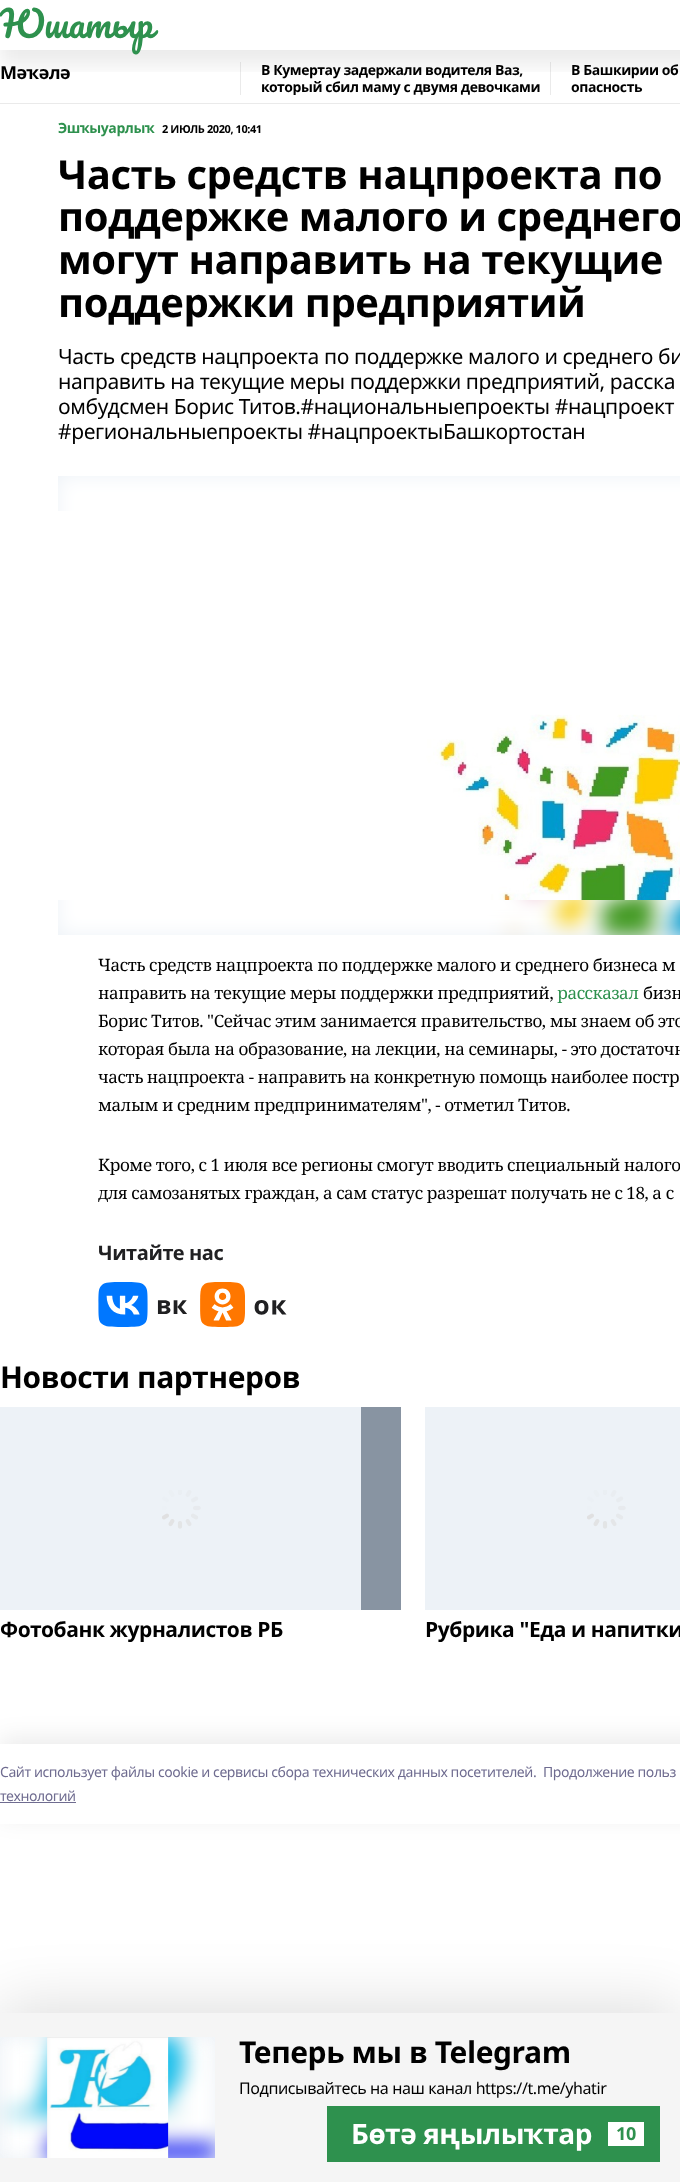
<?xml version="1.0" encoding="UTF-8"?>
<svg xmlns="http://www.w3.org/2000/svg" width="680" height="2182">
    <defs>
        <clipPath id="clip1"><rect x="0" y="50" width="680" height="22"/></clipPath>
        <filter id="blur1" x="-50%" y="-200%" width="200%" height="500%"><feGaussianBlur stdDeviation="10"/></filter>
        <clipPath id="clip2"><rect x="241" y="62" width="309" height="33"/></clipPath>
        <filter id="blur2" x="-50%" y="-200%" width="200%" height="500%"><feGaussianBlur stdDeviation="30"/></filter>
        <clipPath id="clip3"><path d="M 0 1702 H 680 V 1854 H 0 Z M 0 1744 H 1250 V 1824 H 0 Z" clip-rule="evenodd"/></clipPath>
        <filter id="blur3" x="-50%" y="-200%" width="200%" height="500%"><feGaussianBlur stdDeviation="11.5"/></filter>
    </defs>
    <rect width="100%" height="100%" fill="#FFFFFF"/>
    <rect x="240" y="62" width="1" height="33" fill="#EAEAEA"/>
    <rect x="550" y="62" width="1" height="33" fill="#EAEAEA"/>
    <g clip-path="url(#clip1)">
        <rect x="0" y="15" width="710" height="50" fill="#000000" fill-opacity="0.08" filter="url(#blur1)"/>
    </g>
    <text x="0" y="38" font-family="Pacifico" font-size="36" letter-spacing="-0.42" fill="#2E914E">Юшатыр</text>
    <rect x="0" y="103" width="680" height="1" fill="#EAEAEA"/>
    <text x="0" y="79" font-family="Noto Sans" font-size="18" font-weight="700" letter-spacing="-0.42" fill="#000000">Мәҡәлә</text>
    <text x="261" y="75" font-family="Noto Sans" font-size="14" font-weight="700" letter-spacing="-0.42" fill="#000000">В Кумертау задержали водителя Ваз,</text>
    <g clip-path="url(#clip2)">
        <text x="261" y="92" font-family="Noto Sans" font-size="14" font-weight="700" letter-spacing="-0.42" fill="#000000">который сбил маму с двумя девочками</text>
    </g>
    <text font-family="Noto Sans" font-size="14" font-weight="700" letter-spacing="-0.42" fill="#000000">
        <tspan x="571" y="75">В Башкирии об</tspan>
        <tspan x="571" y="92">опасность</tspan>
    </text>
    <text x="58" y="133" font-family="Noto Sans" font-size="14" font-weight="700" letter-spacing="-0.42" fill="#2E914E">Эшҡыуарлыҡ</text>
    <text x="162" y="133" font-family="Noto Sans" font-size="11" font-weight="700" letter-spacing="-0.42" fill="#000000">2 ИЮЛЬ 2020, 10:41</text>
    <text font-family="Noto Sans" font-size="40" font-weight="700" letter-spacing="-0.42" fill="#000000">
        <tspan x="58" y="189">Часть средств нацпроекта по</tspan>
        <tspan x="58" y="231">поддержке малого и среднего</tspan>
        <tspan x="58" y="274">могут направить на текущие</tspan>
        <tspan x="58" y="317">поддержки предприятий</tspan>
    </text>
    <text font-family="Noto Sans" font-size="21" letter-spacing="-0.42" fill="#000000">
        <tspan x="58" y="364">Часть средств нацпроекта по поддержке малого и среднего би</tspan>
        <tspan x="58" y="389">направить на текущие меры поддержки предприятий, расска</tspan>
        <tspan x="58" y="414">омбудсмен Борис Титов.#национальныепроекты #нацпроект</tspan>
        <tspan x="58" y="439">#региональныепроекты #нацпроектыБашкортостан</tspan>
    </text>
    <rect x="58" y="476" width="622" height="459" fill="#EDF2F7"/>
    <image x="58" y="476" width="622" height="459" href="img_01.png"/>
    <image x="58" y="511" width="622" height="389" href="img_02.png"/>
    <text font-family="Noto Serif" font-size="17" letter-spacing="-0.42" fill="#000000">
        <tspan x="98" y="971">Часть средств нацпроекта по поддержке малого и среднего бизнеса м</tspan>
        <tspan x="98" y="999">направить на текущие меры поддержки предприятий,</tspan>
    </text>
    <text x="557" y="999" font-family="Noto Serif" font-size="17" letter-spacing="-0.42" fill="#2E914E">рассказал</text>
    <text x="643" y="999" font-family="Noto Serif" font-size="17" letter-spacing="-0.42" fill="#000000">бизн</text>
    <text font-family="Noto Serif" font-size="17" letter-spacing="-0.42" fill="#000000">
        <tspan x="98" y="1027">Борис Титов. "Сейчас этим занимается правительство, мы знаем об это</tspan>
        <tspan x="98" y="1055">которая была на образование, на лекции, на семинары, - это достаточн</tspan>
        <tspan x="98" y="1083">часть нацпроекта - направить на конкретную помощь наиболее постр</tspan>
        <tspan x="98" y="1111">малым и средним предпринимателям", - отметил Титов.</tspan>
    </text>
    <text font-family="Noto Serif" font-size="17" letter-spacing="-0.42" fill="#000000">
        <tspan x="98" y="1171">Кроме того, с 1 июля все регионы смогут вводить специальный налого</tspan>
        <tspan x="98" y="1199">для самозанятых граждан, а сам статус разрешат получать не с 18, а с</tspan>
    </text>
    <text x="98" y="1260" font-family="Noto Sans" font-size="20" font-weight="700" letter-spacing="-0.42" fill="#202022">Читайте нас</text>
    <image x="98" y="1282" width="89" height="45" href="img_03.png"/>
    <image x="200" y="1282" width="87" height="45" href="img_04.png"/>
    <text x="0" y="1388" font-family="Noto Sans" font-size="30" font-weight="700" letter-spacing="-0.42" fill="#000000">Новости партнеров</text>
    <rect x="361" y="1407" width="40" height="203" fill="#8894A2"/>
    <rect x="0" y="1407" width="361" height="203" fill="#EDF2F7"/>
    <image x="162" y="1490" width="39" height="39" href="img_05.png"/>
    <text x="0" y="1637" font-family="Noto Sans" font-size="21" font-weight="700" letter-spacing="-0.42" fill="#000000">Фотобанк журналистов РБ</text>
    <rect x="425" y="1407" width="255" height="203" fill="#EDF2F7"/>
    <image x="587" y="1490" width="39" height="39" href="img_05.png"/>
    <text x="425" y="1637" font-family="Noto Sans" font-size="21" font-weight="700" letter-spacing="-0.42" fill="#000000">Рубрика "Еда и напитки</text>
    <rect x="0" y="2003" width="680" height="169" fill="#000000" fill-opacity="0.12" filter="url(#blur2)"/>
    <rect x="0" y="2013" width="680" height="169" fill="#F5F5F5"/>
    <rect x="327" y="2106" width="333" height="56" fill="#2E914E"/>
    <text x="351" y="2144" font-family="Noto Sans" font-size="28" font-weight="700" letter-spacing="-0.42" fill="#FFFFFF">Бөтә яңылыҡтар</text>
    <rect x="608" y="2122" width="36" height="24" fill="#FFFFFF"/>
    <text x="616" y="2140" font-family="Noto Sans" font-size="18" font-weight="700" letter-spacing="-0.42" fill="#2E914E">10</text>
    <g clip-path="url(#clip3)">
        <rect x="0" y="1738" width="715" height="80" fill="#14142B" fill-opacity="0.08" filter="url(#blur3)"/>
    </g>
    <text x="0" y="1777" font-family="Noto Sans" font-size="14" letter-spacing="-0.42" fill="#6F6C90">Cайт использует файлы cookie и сервисы сбора технических данных посетителей.</text>
    <text x="543" y="1777" font-family="Noto Sans" font-size="14" letter-spacing="-0.42" fill="#6F6C90">Продолжение польз</text>
    <text x="0" y="1801" font-family="Noto Sans" font-size="14" letter-spacing="-0.42" fill="#6F6C90">технологий</text>
    <rect x="0" y="1802" width="76" height="1" fill="#6F6C90"/>
    <rect x="0" y="2037" width="215" height="121" fill="#EDF2F7"/>
    <image x="0" y="2037" width="215" height="121" href="img_06.png"/>
    <image x="47" y="2037" width="122" height="121" href="img_07.png"/>
    <text x="239" y="2063" font-family="Noto Sans" font-size="30" font-weight="700" letter-spacing="-0.42" fill="#000000">Теперь мы в Telegram</text>
    <text x="239" y="2094" font-family="Noto Sans" font-size="16" letter-spacing="-0.42" fill="#000000">Подписывайтесь на наш канал https://t.me/yhatir</text>
</svg>
